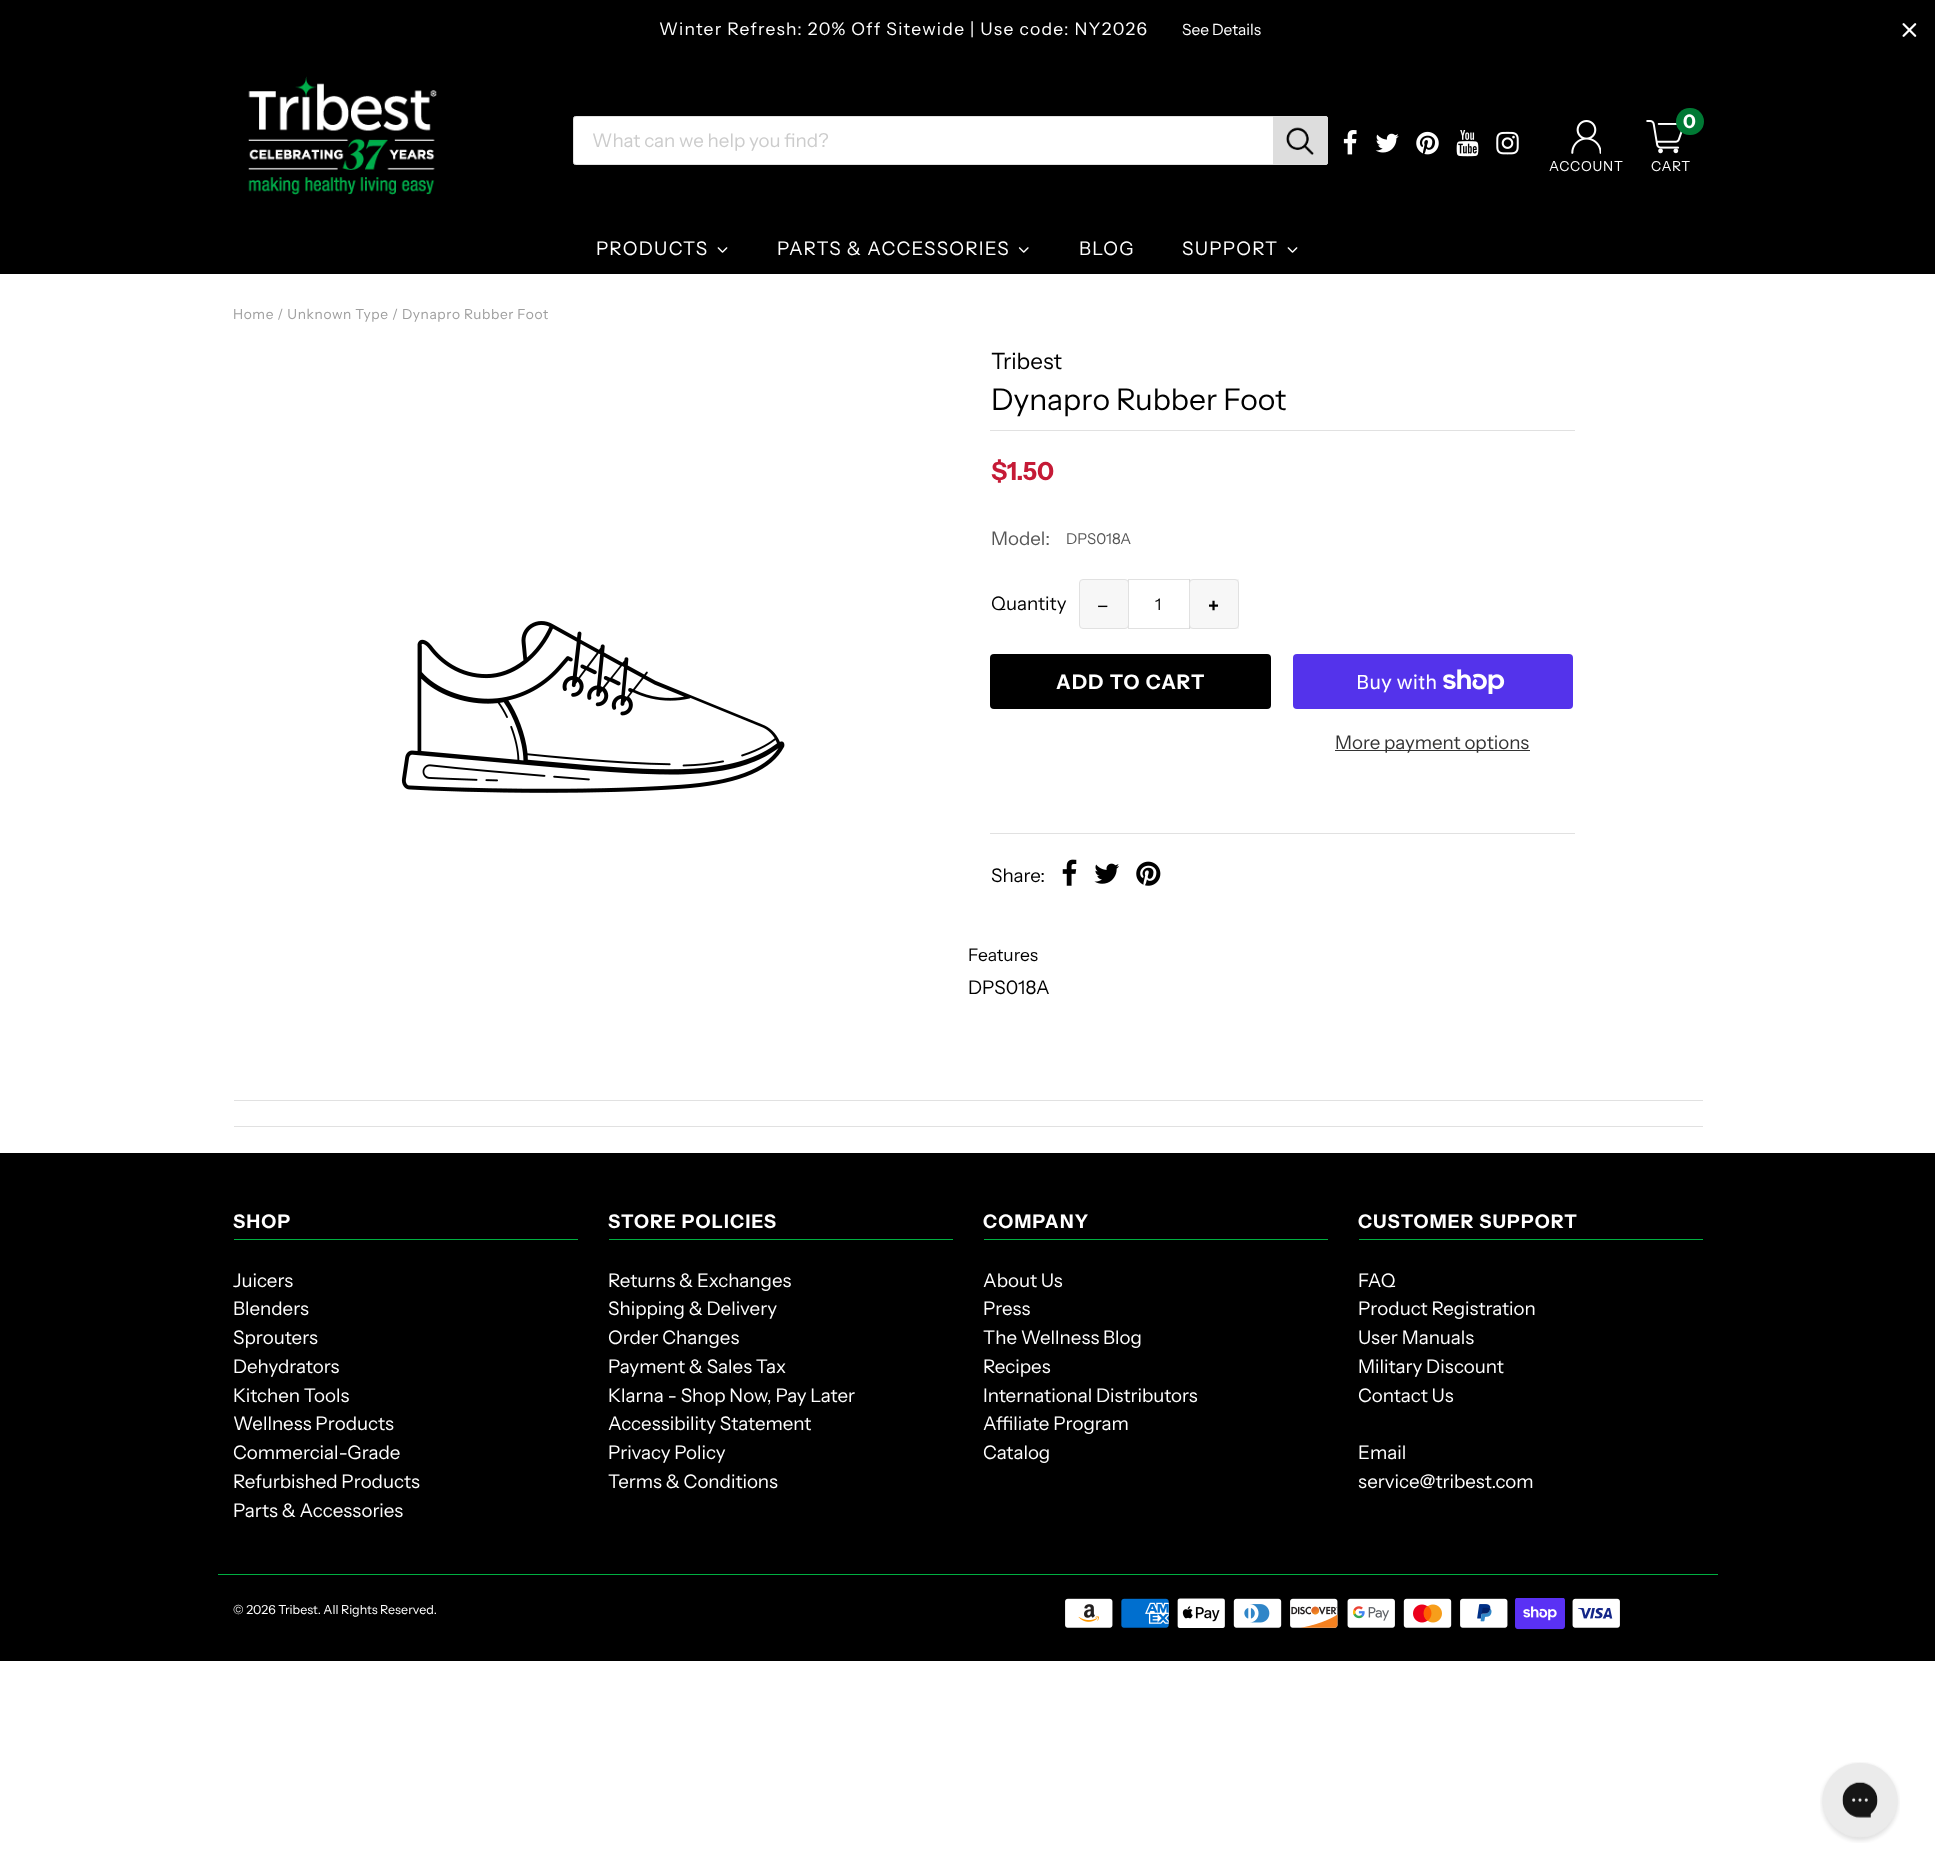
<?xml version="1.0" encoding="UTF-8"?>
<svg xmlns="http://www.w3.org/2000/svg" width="1935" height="1871">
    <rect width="100%" height="100%" fill="#FFFFFF"/>
    <rect x="0" y="0" width="1935" height="274" fill="#000000"/>
    <text x="659" y="35" font-family="Instrument Sans" font-size="17.5" letter-spacing="1.25" fill="#FFFFFF">Winter Refresh: 20% Off Sitewide | Use code: NY2026</text>
    <text x="1182" y="35" font-family="Instrument Sans" font-size="15.5" fill="#FFFFFF">See Details</text>
    <image x="1902" y="23" width="15" height="14" href="img_01.png"/>
    <image x="248" y="76" width="189" height="119" href="img_02.png"/>
    <rect x="573.5" y="116.5" width="754" height="48" rx="2" fill="#FFFFFF" stroke="#E1E1E1"/>
    <text x="592" y="147" font-family="Instrument Sans" font-size="18.75" fill="#CCCCCC">What can we help you find?</text>
    <path d="M 1273 116 H 1325.5 C 1327 116 1328 117 1328 118.5 V 162.5 C 1328 164 1327 165 1325.5 165 H 1273 Z" fill="#DDDDDD"/>
    <image x="1286" y="127" width="28" height="28" href="img_03.png"/>
    <image x="1343" y="130" width="14" height="25" href="img_04.png"/>
    <image x="1375" y="133" width="24" height="20" href="img_05.png"/>
    <image x="1416" y="131" width="23" height="24" href="img_06.png"/>
    <image x="1456" y="130" width="23" height="27" href="img_07.png"/>
    <image x="1496" y="131" width="23" height="24" href="img_08.png"/>
    <image x="1646" y="120" width="37" height="34" href="img_09.png"/>
    <rect x="1676" y="108" width="28" height="27" rx="13.5" fill="#007934"/>
    <text x="1683" y="128" font-family="Instrument Sans" font-size="18.75" font-weight="700" letter-spacing="-2" fill="#FFFFFF">0</text>
    <text x="1651" y="171" font-family="Instrument Sans" font-size="13.75" letter-spacing="0.75" fill="#FFFFFF">CART</text>
    <image x="1571" y="120" width="30" height="34" href="img_10.png"/>
    <text x="1549" y="171" font-family="Instrument Sans" font-size="13.75" letter-spacing="0.75" fill="#FFFFFF">ACCOUNT</text>
    <text x="596" y="255" font-family="Instrument Sans" font-size="18.75" letter-spacing="1.25" fill="#FFFFFF">PRODUCTS</text>
    <image x="717" y="247" width="11" height="6" href="img_11.png"/>
    <text x="777" y="255" font-family="Instrument Sans" font-size="18.75" letter-spacing="1.25" fill="#FFFFFF">PARTS &amp; ACCESSORIES</text>
    <image x="1018" y="247" width="11" height="6" href="img_12.png"/>
    <text x="1079" y="255" font-family="Instrument Sans" font-size="18.75" letter-spacing="1.25" fill="#FFFFFF">BLOG</text>
    <text x="1182" y="255" font-family="Instrument Sans" font-size="18.75" letter-spacing="1.25" fill="#FFFFFF">SUPPORT</text>
    <image x="1287" y="247" width="11" height="6" href="img_11.png"/>
    <text x="233" y="319" font-family="Instrument Sans" font-size="13.75" letter-spacing="0.6" fill="#9E9E9E">Home / Unknown Type / Dynapro Rubber Foot</text>
    <image x="401" y="621" width="384" height="172" href="img_13.png"/>
    <text x="991" y="369" font-family="Instrument Sans" font-size="22.5" fill="#000000">Tribest</text>
    <text x="991" y="410" font-family="Instrument Sans" font-size="30" fill="#000000">Dynapro Rubber Foot</text>
    <rect x="990" y="430" width="585" height="1" fill="#E1E1E1"/>
    <text x="991" y="480" font-family="Instrument Sans" font-size="25" font-weight="700" fill="#C51A36">$1.50</text>
    <text x="991" y="545" font-family="Instrument Sans" font-size="18.75" fill="#575757">Model:</text>
    <text x="1066" y="544" font-family="Instrument Sans" font-size="15" fill="#575757">DPS018A</text>
    <text x="991" y="610" font-family="Instrument Sans" font-size="18.75" fill="#000000">Quantity</text>
    <rect x="1079.5" y="579.5" width="49" height="49" rx="3.5" fill="#F7F7F7" stroke="#E1E1E1"/>
    <text x="1097" y="613" font-family="Liberation Serif" font-size="20" font-weight="700" letter-spacing="1.25" fill="#000000">−</text>
    <rect x="1128.5" y="579.5" width="61" height="49" fill="none" stroke="#E1E1E1"/>
    <text x="1155" y="610" font-family="Instrument Sans" font-size="16" fill="#000000">1</text>
    <rect x="1189" y="579" width="50" height="50" fill="#000000" fill-opacity="0.03"/>
    <rect x="1189.5" y="579.5" width="49" height="49" rx="3.5" fill="none" stroke="#E1E1E1"/>
    <text x="1208" y="613" font-family="Instrument Sans" font-size="20" font-weight="700" letter-spacing="1.25" fill="#000000">+</text>
    <rect x="990" y="654" width="281" height="55" rx="4" fill="#000000"/>
    <text x="1056" y="689" font-family="Instrument Sans" font-size="20" font-weight="700" letter-spacing="1.25" fill="#FFFFFF">ADD TO CART</text>
    <rect x="1293" y="654" width="280" height="55" rx="4" fill="#5433EB"/>
    <text x="1356" y="689" font-family="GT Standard" font-size="20" fill="#FFFFFF">Buy with</text>
    <image x="1443" y="669" width="62" height="25" href="img_14.png"/>
    <rect x="1335" y="750" width="195" height="1" fill="#333333"/>
    <text x="1335" y="749" font-family="Instrument Sans" font-size="18.75" fill="#333333">More payment options</text>
    <rect x="990" y="833" width="585" height="1" fill="#E1E1E1"/>
    <text x="991" y="882" font-family="Instrument Sans" font-size="18.75" fill="#000000">Share:</text>
    <image x="1062" y="859" width="15" height="27" href="img_15.png"/>
    <image x="1094" y="863" width="25" height="21" href="img_16.png"/>
    <image x="1136" y="861" width="25" height="25" href="img_17.png"/>
    <text x="968" y="961" font-family="Instrument Sans" font-size="17.5" fill="#000000">Features</text>
    <text x="968" y="994" font-family="Instrument Sans" font-size="18.75" fill="#000000">DPS018A</text>
    <rect x="234" y="1100" width="1469" height="1" fill="#E1E1E1"/>
    <rect x="234" y="1126" width="1469" height="1" fill="#E1E1E1"/>
    <rect x="0" y="1153" width="1935" height="508" fill="#000000"/>
    <rect x="234" y="1239" width="344" height="1" fill="#00AF41"/>
    <text x="233" y="1228" font-family="Instrument Sans" font-size="18.75" font-weight="700" letter-spacing="1.25" fill="#FFFFFF">SHOP</text>
    <text font-family="Instrument Sans" font-size="18.75" fill="#FFFFFF">
        <tspan x="233" y="1287">Juicers</tspan>
        <tspan x="233" y="1315">Blenders</tspan>
        <tspan x="233" y="1344">Sprouters</tspan>
        <tspan x="233" y="1373">Dehydrators</tspan>
        <tspan x="233" y="1402">Kitchen Tools</tspan>
        <tspan x="233" y="1430">Wellness Products</tspan>
        <tspan x="233" y="1459">Commercial-Grade</tspan>
        <tspan x="233" y="1488">Refurbished Products</tspan>
        <tspan x="233" y="1517">Parts &amp; Accessories</tspan>
    </text>
    <rect x="609" y="1239" width="344" height="1" fill="#00AF41"/>
    <text x="608" y="1228" font-family="Instrument Sans" font-size="18.75" font-weight="700" letter-spacing="1.25" fill="#FFFFFF">STORE POLICIES</text>
    <text font-family="Instrument Sans" font-size="18.75" fill="#FFFFFF">
        <tspan x="608" y="1287">Returns &amp; Exchanges</tspan>
        <tspan x="608" y="1315">Shipping &amp; Delivery</tspan>
        <tspan x="608" y="1344">Order Changes</tspan>
        <tspan x="608" y="1373">Payment &amp; Sales Tax</tspan>
        <tspan x="608" y="1402">Klarna - Shop Now, Pay Later</tspan>
        <tspan x="608" y="1430">Accessibility Statement</tspan>
        <tspan x="608" y="1459">Privacy Policy</tspan>
        <tspan x="608" y="1488">Terms &amp; Conditions</tspan>
    </text>
    <rect x="984" y="1239" width="344" height="1" fill="#00AF41"/>
    <text x="983" y="1228" font-family="Instrument Sans" font-size="18.75" font-weight="700" letter-spacing="1.25" fill="#FFFFFF">COMPANY</text>
    <text font-family="Instrument Sans" font-size="18.75" fill="#FFFFFF">
        <tspan x="983" y="1287">About Us</tspan>
        <tspan x="983" y="1315">Press</tspan>
        <tspan x="983" y="1344">The Wellness Blog</tspan>
        <tspan x="983" y="1373">Recipes</tspan>
        <tspan x="983" y="1402">International Distributors</tspan>
        <tspan x="983" y="1430">Affiliate Program</tspan>
        <tspan x="983" y="1459">Catalog</tspan>
    </text>
    <rect x="1359" y="1239" width="344" height="1" fill="#00AF41"/>
    <text x="1358" y="1228" font-family="Instrument Sans" font-size="18.75" font-weight="700" letter-spacing="1.25" fill="#FFFFFF">CUSTOMER SUPPORT</text>
    <text font-family="Instrument Sans" font-size="18.75" fill="#FFFFFF">
        <tspan x="1358" y="1287">FAQ</tspan>
        <tspan x="1358" y="1315">Product Registration</tspan>
        <tspan x="1358" y="1344">User Manuals</tspan>
        <tspan x="1358" y="1373">Military Discount</tspan>
        <tspan x="1358" y="1402">Contact Us</tspan>
    </text>
    <text font-family="Instrument Sans" font-size="18.75" fill="#FFFFFF">
        <tspan x="1358" y="1459">Email</tspan>
        <tspan x="1358" y="1488">service@tribest.com</tspan>
    </text>
    <rect x="218" y="1574" width="1500" height="1" fill="#00AF41"/>
    <text x="233" y="1614" font-family="Instrument Sans" font-size="12.5" fill="#FFFFFF">© 2026 Tribest. All Rights Reserved.</text>
    <image x="1065" y="1598" width="48" height="30" href="img_18.png"/>
    <image x="1121" y="1598" width="48" height="30" href="img_19.png"/>
    <image x="1177" y="1598" width="48" height="30" href="img_20.png"/>
    <image x="1233" y="1598" width="49" height="30" href="img_21.png"/>
    <image x="1290" y="1598" width="48" height="30" href="img_22.png"/>
    <image x="1347" y="1598" width="48" height="30" href="img_23.png"/>
    <image x="1403" y="1598" width="49" height="30" href="img_24.png"/>
    <image x="1460" y="1598" width="48" height="30" href="img_25.png"/>
    <image x="1515" y="1598" width="50" height="32" href="img_26.png"/>
    <image x="1572" y="1598" width="48" height="30" href="img_27.png"/>
    <image x="1820" y="1762" width="80" height="81" href="img_28.png"/>
</svg>
